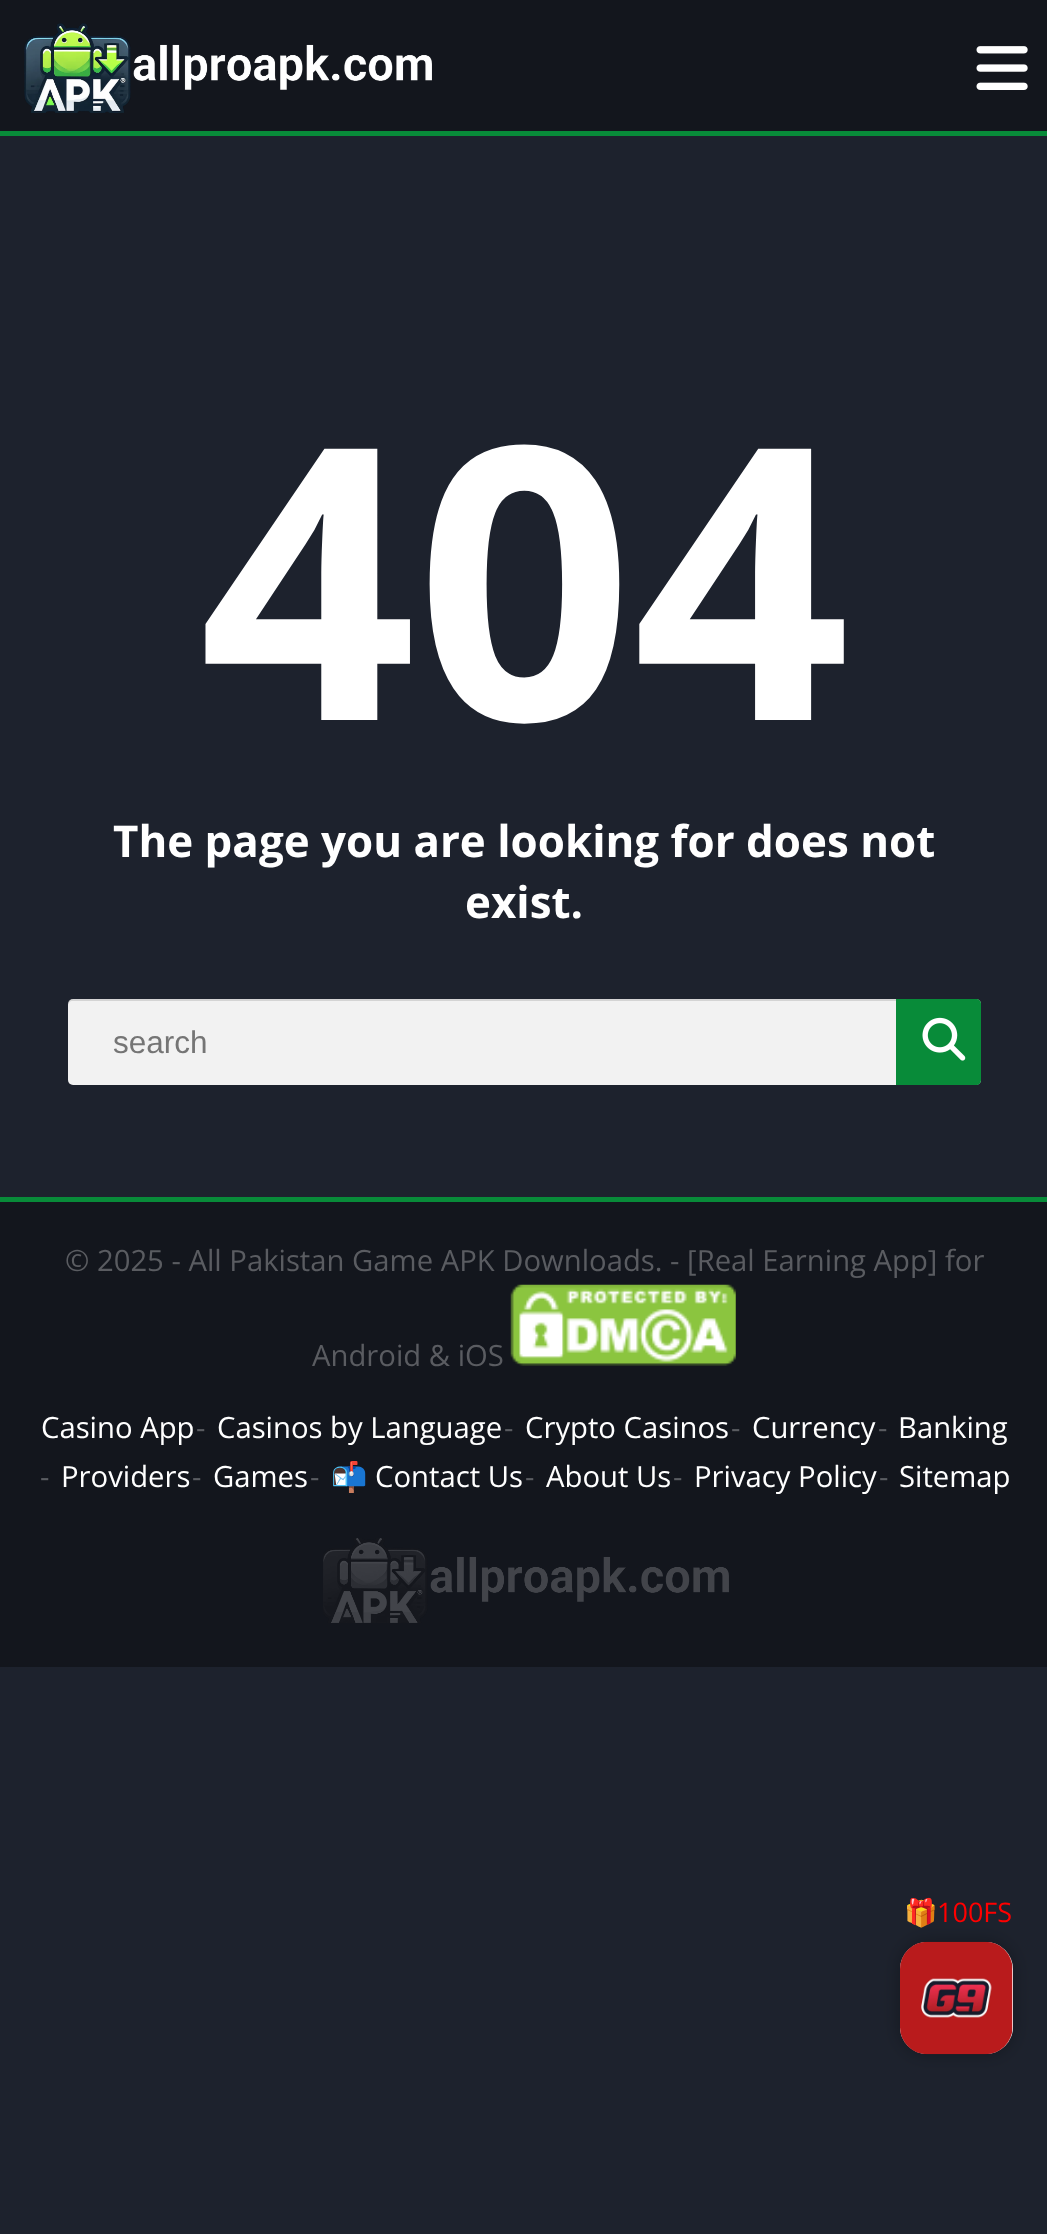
<?xml version="1.0" encoding="UTF-8"?>
<svg xmlns="http://www.w3.org/2000/svg" width="1047" height="2234">
    <defs>
        <filter id="blur1" x="-50%" y="-200%" width="200%" height="500%"><feGaussianBlur stdDeviation="9"/></filter>
    </defs>
    <rect width="100%" height="100%" fill="#1D222D"/>
    <rect x="0" y="0" width="1047" height="131" fill="#13161D"/>
    <rect x="0" y="131" width="1047" height="5" fill="#088B39"/>
    <image x="24" y="23" width="408" height="90" href="img_01.png"/>
    <image x="976" y="46" width="52" height="44" href="img_02.png"/>
    <text x="199" y="720" font-family="Open Sans" font-size="380" font-weight="700" fill="#FFFFFF">404</text>
    <text x="113" y="857" font-family="Open Sans" font-size="43.9" font-weight="700" fill="#FFFFFF">The page you are looking for does not</text>
    <text x="465" y="918" font-family="Open Sans" font-size="43.9" font-weight="700" fill="#FFFFFF">exist.</text>
    <rect x="68" y="999" width="913" height="86" rx="5" fill="#F2F2F2"/>
    <path d="M 72 1001 H 976 C 979 1001 981 1003 981 1006 V 1004 C 981 1001 979 999 976 999 H 73 C 70 999 68 1001 68 1004 V 1006 C 68 1003 70 1001 72 1001 Z" fill="#000000" fill-opacity="0.12"/>
    <text x="113" y="1053" font-family="Liberation Sans" font-size="31.5" fill="#757575">search</text>
    <path d="M 896 999 H 976 C 979 999 981 1001 981 1004 V 1080 C 981 1083 979 1085 976 1085 H 896 Z" fill="#088B39"/>
    <image x="922" y="1017" width="44" height="44" href="img_03.png"/>
    <rect x="0" y="1202" width="1047" height="465" fill="#13161D"/>
    <rect x="0" y="1197" width="1047" height="5" fill="#088B39"/>
    <text x="65" y="1271" font-family="Open Sans" font-size="29.25" fill="#5A5C61">© 2025 - All Pakistan Game APK Downloads. - [Real Earning App] for</text>
    <text x="312" y="1366" font-family="Open Sans" font-size="29.25" fill="#5A5C61">Android &amp; iOS</text>
    <image x="510" y="1284" width="226" height="82" href="img_04.png"/>
    <text x="41" y="1438" font-family="Open Sans" font-size="29.25" fill="#FFFFFF">Casino App</text>
    <text x="196" y="1438" font-family="Open Sans" font-size="29.25" fill="#5A5C61">-</text>
    <text x="217" y="1438" font-family="Open Sans" font-size="29.25" fill="#FFFFFF">Casinos by Language</text>
    <text x="504" y="1438" font-family="Open Sans" font-size="29.25" fill="#5A5C61">-</text>
    <text x="525" y="1438" font-family="Open Sans" font-size="29.25" fill="#FFFFFF">Crypto Casinos</text>
    <text x="731" y="1438" font-family="Open Sans" font-size="29.25" fill="#5A5C61">-</text>
    <text x="752" y="1438" font-family="Open Sans" font-size="29.25" fill="#FFFFFF">Currency</text>
    <text x="878" y="1438" font-family="Open Sans" font-size="29.25" fill="#5A5C61">-</text>
    <text x="898" y="1438" font-family="Open Sans" font-size="29.25" fill="#FFFFFF">Banking</text>
    <text x="40" y="1487" font-family="Open Sans" font-size="29.25" fill="#5A5C61">-</text>
    <text x="61" y="1487" font-family="Open Sans" font-size="29.25" fill="#FFFFFF">Providers</text>
    <text x="192" y="1487" font-family="Open Sans" font-size="29.25" fill="#5A5C61">-</text>
    <text x="213" y="1487" font-family="Open Sans" font-size="29.25" fill="#FFFFFF">Games</text>
    <text x="310" y="1487" font-family="Open Sans" font-size="29.25" fill="#5A5C61">-</text>
    <text x="331" y="1487" font-family="Noto Color Emoji" font-size="29.25" fill="#FFFFFF">📬</text>
    <text x="375" y="1487" font-family="Open Sans" font-size="29.25" fill="#FFFFFF">Contact Us</text>
    <text x="525" y="1487" font-family="Open Sans" font-size="29.25" fill="#5A5C61">-</text>
    <text x="546" y="1487" font-family="Open Sans" font-size="29.25" fill="#FFFFFF">About Us</text>
    <text x="673" y="1487" font-family="Open Sans" font-size="29.25" fill="#5A5C61">-</text>
    <text x="694" y="1487" font-family="Open Sans" font-size="29.25" fill="#FFFFFF">Privacy Policy</text>
    <text x="879" y="1487" font-family="Open Sans" font-size="29.25" fill="#5A5C61">-</text>
    <text x="899" y="1487" font-family="Open Sans" font-size="29.25" fill="#FFFFFF">Sitemap</text>
    <image x="323" y="1538" width="406" height="85" href="img_05.png"/>
    <rect x="900" y="1942" width="113" height="112" rx="27" fill="#000000" fill-opacity="0.3" filter="url(#blur1)"/>
    <text x="904" y="1922" font-family="Noto Color Emoji" font-size="27" fill="#FF0000">🎁</text>
    <text x="937" y="1922" font-family="Open Sans" font-size="27" fill="#FF0000">100FS</text>
    <rect x="900" y="1942" width="113" height="112" rx="27" fill="#FFFFFF"/>
    <image x="900" y="1941" width="113" height="114" href="img_06.png"/>
</svg>
